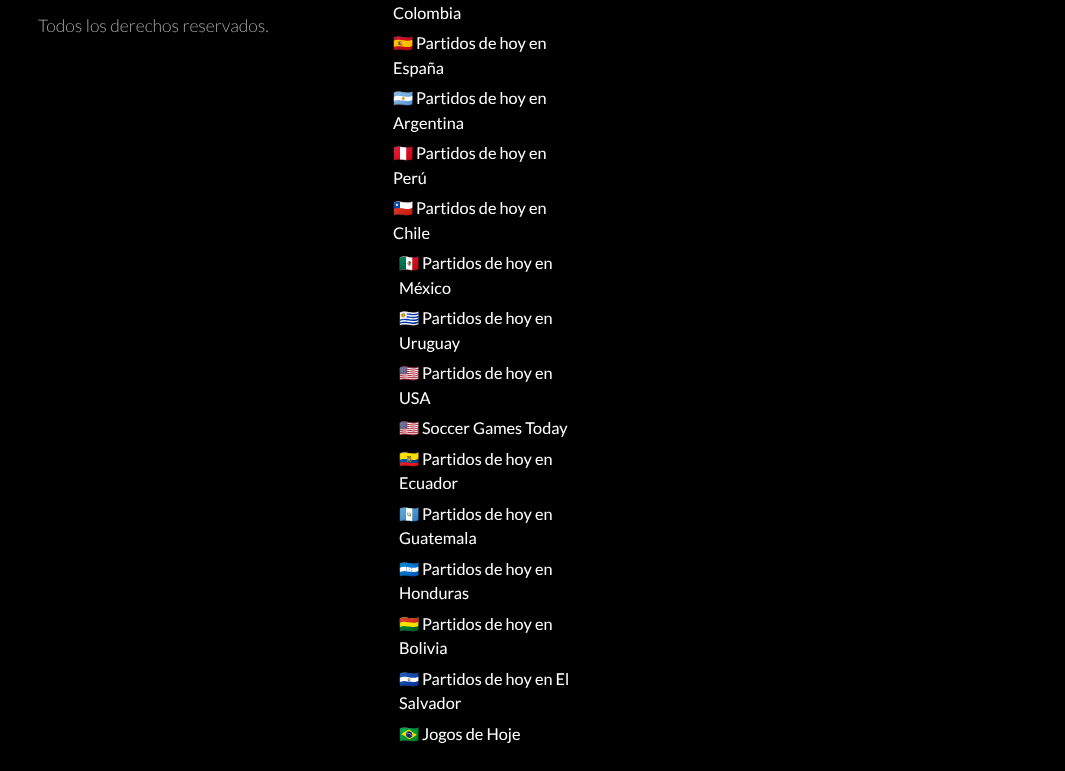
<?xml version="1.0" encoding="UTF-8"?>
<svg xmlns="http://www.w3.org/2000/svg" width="1065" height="771">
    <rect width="100%" height="100%" fill="#000000"/>
    <text x="38" y="32" font-family="Lato" font-size="17.5" font-weight="300" fill="#A6A6A6">Todos los derechos reservados.</text>
    <text x="393" y="19" font-family="Lato" font-size="16.25" fill="#FFFFFF">Colombia</text>
    <text x="393" y="49" font-family="Noto Color Emoji" font-size="16.25" fill="#FFFFFF">🇪🇸</text>
    <text x="416" y="49" font-family="Lato" font-size="16.25" fill="#FFFFFF">Partidos de hoy en</text>
    <text x="393" y="74" font-family="Lato" font-size="16.25" fill="#FFFFFF">España</text>
    <text x="393" y="104" font-family="Noto Color Emoji" font-size="16.25" fill="#FFFFFF">🇦🇷</text>
    <text x="416" y="104" font-family="Lato" font-size="16.25" fill="#FFFFFF">Partidos de hoy en</text>
    <text x="393" y="129" font-family="Lato" font-size="16.25" fill="#FFFFFF">Argentina</text>
    <text x="393" y="159" font-family="Noto Color Emoji" font-size="16.25" fill="#FFFFFF">🇵🇪</text>
    <text x="416" y="159" font-family="Lato" font-size="16.25" fill="#FFFFFF">Partidos de hoy en</text>
    <text x="393" y="184" font-family="Lato" font-size="16.25" fill="#FFFFFF">Perú</text>
    <text x="393" y="214" font-family="Noto Color Emoji" font-size="16.25" fill="#FFFFFF">🇨🇱</text>
    <text x="416" y="214" font-family="Lato" font-size="16.25" fill="#FFFFFF">Partidos de hoy en</text>
    <text x="393" y="239" font-family="Lato" font-size="16.25" fill="#FFFFFF">Chile</text>
    <text x="399" y="269" font-family="Noto Color Emoji" font-size="16.25" fill="#FFFFFF">🇲🇽</text>
    <text x="422" y="269" font-family="Lato" font-size="16.25" fill="#FFFFFF">Partidos de hoy en</text>
    <text x="399" y="294" font-family="Lato" font-size="16.25" fill="#FFFFFF">México</text>
    <text x="399" y="324" font-family="Noto Color Emoji" font-size="16.25" fill="#FFFFFF">🇺🇾</text>
    <text x="422" y="324" font-family="Lato" font-size="16.25" fill="#FFFFFF">Partidos de hoy en</text>
    <text x="399" y="349" font-family="Lato" font-size="16.25" fill="#FFFFFF">Uruguay</text>
    <text x="399" y="379" font-family="Noto Color Emoji" font-size="16.25" fill="#FFFFFF">🇺🇸</text>
    <text x="422" y="379" font-family="Lato" font-size="16.25" fill="#FFFFFF">Partidos de hoy en</text>
    <text x="399" y="404" font-family="Lato" font-size="16.25" fill="#FFFFFF">USA</text>
    <text x="399" y="434" font-family="Noto Color Emoji" font-size="16.25" fill="#FFFFFF">🇺🇸</text>
    <text x="422" y="434" font-family="Lato" font-size="16.25" fill="#FFFFFF">Soccer Games Today</text>
    <text x="399" y="465" font-family="Noto Color Emoji" font-size="16.25" fill="#FFFFFF">🇪🇨</text>
    <text x="422" y="465" font-family="Lato" font-size="16.25" fill="#FFFFFF">Partidos de hoy en</text>
    <text x="399" y="489" font-family="Lato" font-size="16.25" fill="#FFFFFF">Ecuador</text>
    <text x="399" y="520" font-family="Noto Color Emoji" font-size="16.25" fill="#FFFFFF">🇬🇹</text>
    <text x="422" y="520" font-family="Lato" font-size="16.25" fill="#FFFFFF">Partidos de hoy en</text>
    <text x="399" y="544" font-family="Lato" font-size="16.25" fill="#FFFFFF">Guatemala</text>
    <text x="399" y="575" font-family="Noto Color Emoji" font-size="16.25" fill="#FFFFFF">🇭🇳</text>
    <text x="422" y="575" font-family="Lato" font-size="16.25" fill="#FFFFFF">Partidos de hoy en</text>
    <text x="399" y="599" font-family="Lato" font-size="16.25" fill="#FFFFFF">Honduras</text>
    <text x="399" y="630" font-family="Noto Color Emoji" font-size="16.25" fill="#FFFFFF">🇧🇴</text>
    <text x="422" y="630" font-family="Lato" font-size="16.25" fill="#FFFFFF">Partidos de hoy en</text>
    <text x="399" y="654" font-family="Lato" font-size="16.25" fill="#FFFFFF">Bolivia</text>
    <text x="399" y="685" font-family="Noto Color Emoji" font-size="16.25" fill="#FFFFFF">🇸🇻</text>
    <text x="422" y="685" font-family="Lato" font-size="16.25" fill="#FFFFFF">Partidos de hoy en El</text>
    <text x="399" y="709" font-family="Lato" font-size="16.25" fill="#FFFFFF">Salvador</text>
    <text x="399" y="740" font-family="Noto Color Emoji" font-size="16.25" fill="#FFFFFF">🇧🇷</text>
    <text x="422" y="740" font-family="Lato" font-size="16.25" fill="#FFFFFF">Jogos de Hoje</text>
</svg>
